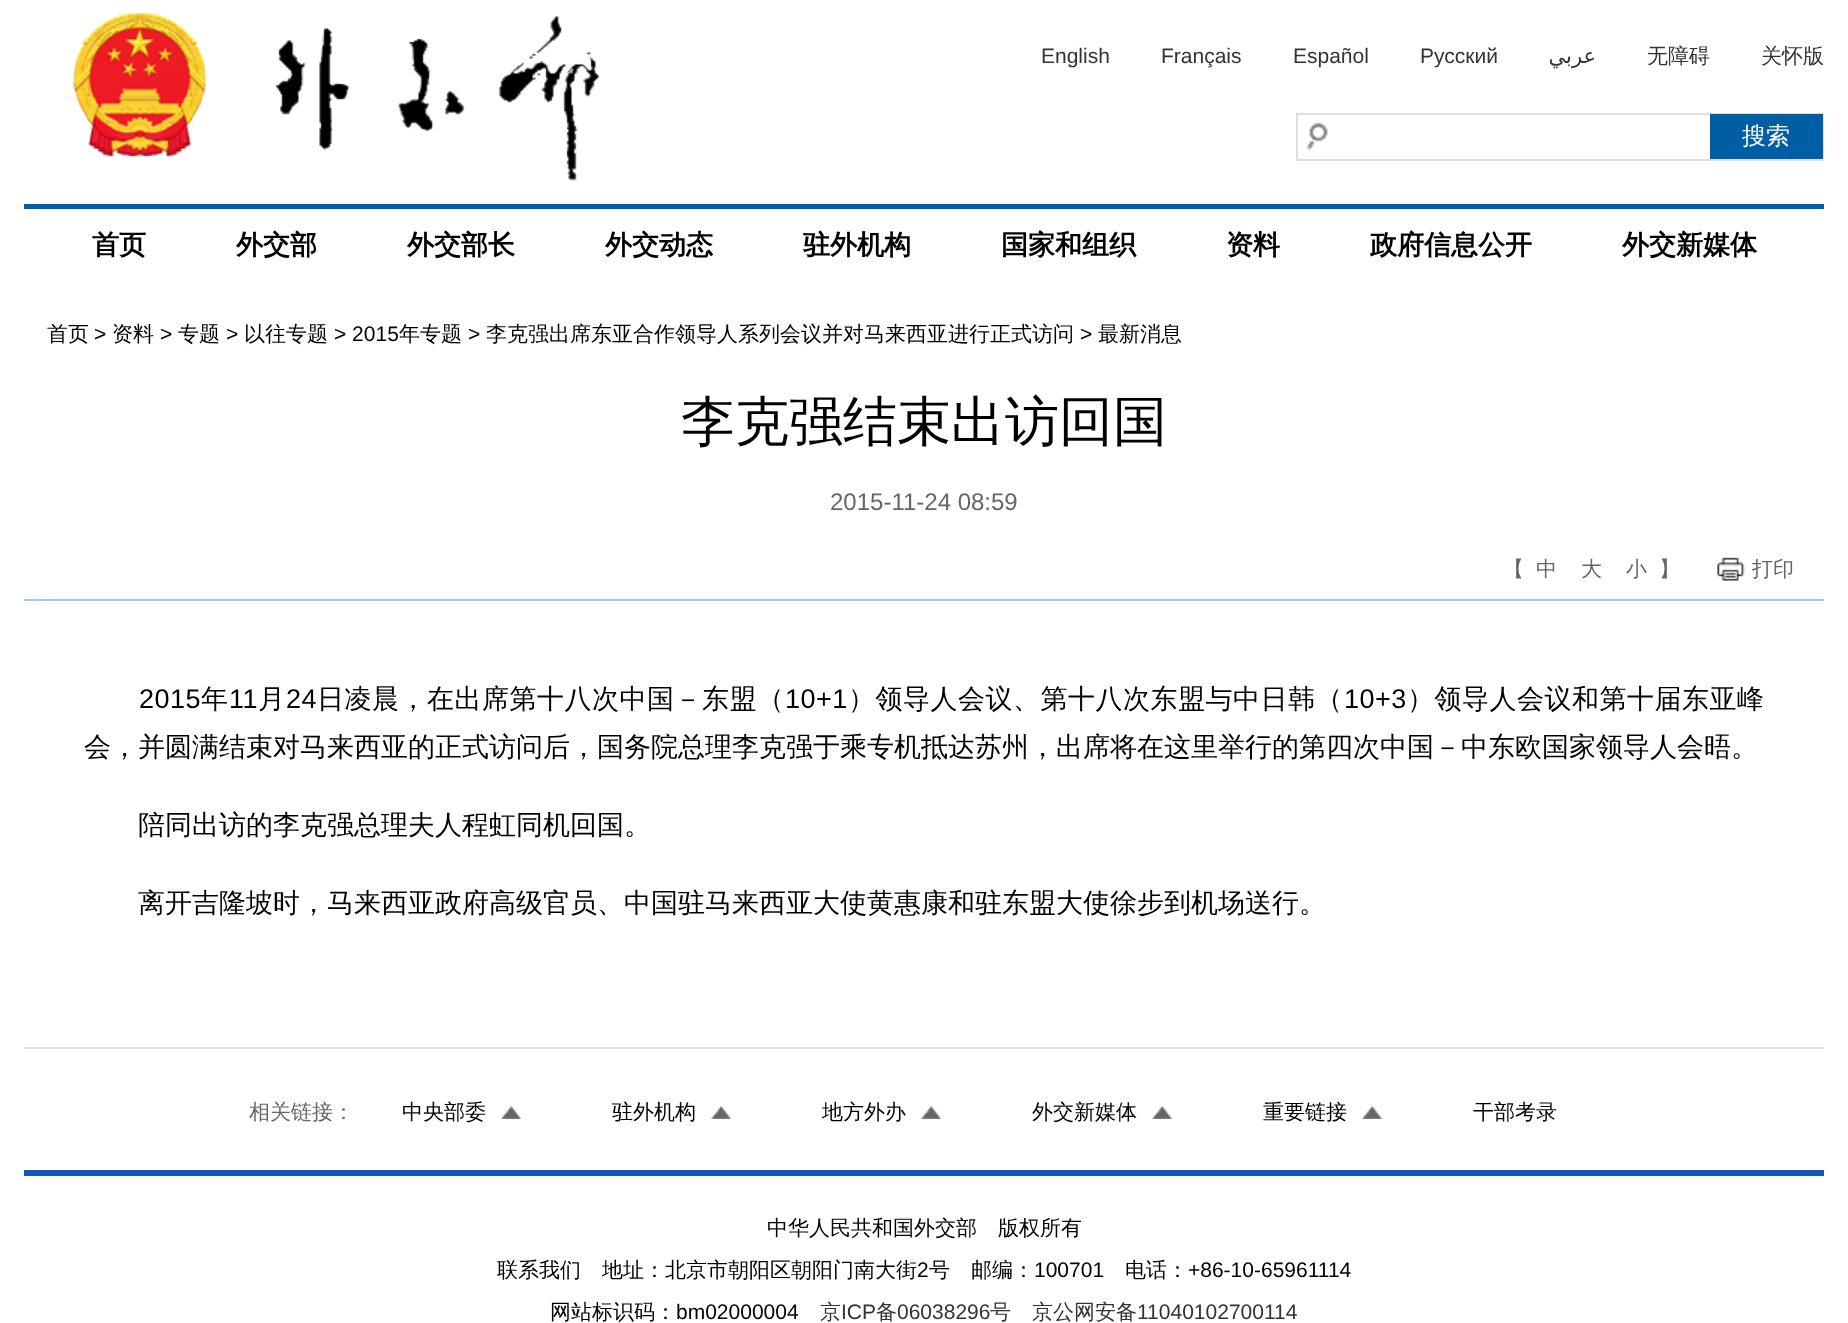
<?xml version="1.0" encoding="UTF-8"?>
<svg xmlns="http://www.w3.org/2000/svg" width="1848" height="1323">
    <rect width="100%" height="100%" fill="#FFFFFF"/>
    <image x="73" y="13" width="528" height="168" href="img_01.png"/>
    <text x="1041" y="63" font-family="Liberation Sans" font-size="21" fill="#333333">English</text>
    <text x="1161" y="63" font-family="Liberation Sans" font-size="21" fill="#333333">Français</text>
    <text x="1293" y="63" font-family="Liberation Sans" font-size="21" fill="#333333">Español</text>
    <text x="1420" y="63" font-family="Liberation Sans" font-size="21" fill="#333333">Русский</text>
    <text x="1596" y="63" font-family="DejaVu Sans" font-size="21" direction="rtl" fill="#333333">عربي</text>
    <text x="1647" y="63" font-family="WenQuanYi Zen Hei" font-size="21" font-weight="500" fill="#333333">无障碍</text>
    <text x="1761" y="63" font-family="WenQuanYi Zen Hei" font-size="21" font-weight="500" fill="#333333">关怀版</text>
    <rect x="1297" y="114" width="526" height="46" fill="none" stroke="#DFDFDF" stroke-width="2"/>
    <image x="1306" y="122" width="22" height="29" href="img_02.png"/>
    <rect x="1710" y="114" width="113" height="45" fill="#005EA4"/>
    <text x="1742" y="144" font-family="WenQuanYi Zen Hei" font-size="24" font-weight="500" fill="#FFFFFF">搜索</text>
    <rect x="24" y="204" width="1800" height="5" fill="#005EA5"/>
    <text x="92" y="254" font-family="WenQuanYi Zen Hei" font-size="27" font-weight="700" fill="#000000">首页</text>
    <text x="236" y="254" font-family="WenQuanYi Zen Hei" font-size="27" font-weight="700" fill="#000000">外交部</text>
    <text x="407" y="254" font-family="WenQuanYi Zen Hei" font-size="27" font-weight="700" fill="#000000">外交部长</text>
    <text x="605" y="254" font-family="WenQuanYi Zen Hei" font-size="27" font-weight="700" fill="#000000">外交动态</text>
    <text x="803" y="254" font-family="WenQuanYi Zen Hei" font-size="27" font-weight="700" fill="#000000">驻外机构</text>
    <text x="1001" y="254" font-family="WenQuanYi Zen Hei" font-size="27" font-weight="700" fill="#000000">国家和组织</text>
    <text x="1226" y="254" font-family="WenQuanYi Zen Hei" font-size="27" font-weight="700" fill="#000000">资料</text>
    <text x="1370" y="254" font-family="WenQuanYi Zen Hei" font-size="27" font-weight="700" fill="#000000">政府信息公开</text>
    <text x="1622" y="254" font-family="WenQuanYi Zen Hei" font-size="27" font-weight="700" fill="#000000">外交新媒体</text>
    <text x="47" y="341" font-family="WenQuanYi Zen Hei" font-size="21" font-weight="500" fill="#000000">首页</text>
    <text x="94" y="341" font-family="Liberation Sans" font-size="21" fill="#000000">&gt;</text>
    <text x="112" y="341" font-family="WenQuanYi Zen Hei" font-size="21" font-weight="500" fill="#000000">资料</text>
    <text x="160" y="341" font-family="Liberation Sans" font-size="21" fill="#000000">&gt;</text>
    <text x="178" y="341" font-family="WenQuanYi Zen Hei" font-size="21" font-weight="500" fill="#000000">专题</text>
    <text x="226" y="341" font-family="Liberation Sans" font-size="21" fill="#000000">&gt;</text>
    <text x="244" y="341" font-family="WenQuanYi Zen Hei" font-size="21" font-weight="500" fill="#000000">以往专题</text>
    <text x="334" y="341" font-family="Liberation Sans" font-size="21" fill="#000000">&gt; 2015</text>
    <text x="399" y="341" font-family="WenQuanYi Zen Hei" font-size="21" font-weight="500" fill="#000000">年专题</text>
    <text x="468" y="341" font-family="Liberation Sans" font-size="21" fill="#000000">&gt;</text>
    <text x="486" y="341" font-family="WenQuanYi Zen Hei" font-size="21" font-weight="500" fill="#000000">李克强出席东亚合作领导人系列会议并对马来西亚进行正式访问</text>
    <text x="1080" y="341" font-family="Liberation Sans" font-size="21" fill="#000000">&gt;</text>
    <text x="1098" y="341" font-family="WenQuanYi Zen Hei" font-size="21" font-weight="500" fill="#000000">最新消息</text>
    <rect x="24" y="599" width="1800" height="2" fill="#99CDFF"/>
    <text x="681" y="440" font-family="WenQuanYi Zen Hei" font-size="54" font-weight="500" fill="#000000">李克强结束出访回国</text>
    <text x="830" y="510" font-family="Liberation Sans" font-size="24" fill="#666666">2015-11-24 08:59</text>
    <text x="1503" y="576" font-family="WenQuanYi Zen Hei" font-size="21" font-weight="500" fill="#666666">【</text>
    <text x="1536" y="576" font-family="WenQuanYi Zen Hei" font-size="21" font-weight="500" fill="#666666">中</text>
    <text x="1581" y="576" font-family="WenQuanYi Zen Hei" font-size="21" font-weight="500" fill="#666666">大</text>
    <text x="1626" y="576" font-family="WenQuanYi Zen Hei" font-size="21" font-weight="500" fill="#666666">小</text>
    <text x="1659" y="576" font-family="WenQuanYi Zen Hei" font-size="21" font-weight="500" fill="#666666">】</text>
    <image x="1717" y="557" width="28" height="24" href="img_03.png"/>
    <text x="1752" y="576" font-family="WenQuanYi Zen Hei" font-size="21" font-weight="500" fill="#666666">打印</text>
    <text x="139" y="708" font-family="Liberation Sans" font-size="27" letter-spacing="0.5" fill="#000000">2015</text>
    <text x="201" y="708" font-family="WenQuanYi Zen Hei" font-size="27" font-weight="500" letter-spacing="0.5" fill="#000000">年</text>
    <text x="229" y="708" font-family="Liberation Sans" font-size="27" letter-spacing="0.5" fill="#000000">11</text>
    <text x="258" y="708" font-family="WenQuanYi Zen Hei" font-size="27" font-weight="500" letter-spacing="0.5" fill="#000000">月</text>
    <text x="286" y="708" font-family="Liberation Sans" font-size="27" letter-spacing="0.5" fill="#000000">24</text>
    <text x="317" y="708" font-family="WenQuanYi Zen Hei" font-size="27" font-weight="500" letter-spacing="0.5" fill="#000000">日凌晨，在出席第十八次中国－东盟（</text>
    <text x="785" y="708" font-family="Liberation Sans" font-size="27" letter-spacing="0.5" fill="#000000">10+1</text>
    <text x="848" y="708" font-family="WenQuanYi Zen Hei" font-size="27" font-weight="500" letter-spacing="0.5" fill="#000000">）领导人会议、第十八次东盟与中日韩（</text>
    <text x="1344" y="708" font-family="Liberation Sans" font-size="27" letter-spacing="0.5" fill="#000000">10+3</text>
    <text x="1407" y="708" font-family="WenQuanYi Zen Hei" font-size="27" font-weight="500" letter-spacing="0.5" fill="#000000">）领导人会议和第十届东亚峰</text>
    <text x="84" y="756" font-family="WenQuanYi Zen Hei" font-size="27" font-weight="500" fill="#000000">会，并圆满结束对马来西亚的正式访问后，国务院总理李克强于乘专机抵达苏州，出席将在这里举行的第四次中国－中东欧国家领导人会晤。</text>
    <text x="138" y="834" font-family="WenQuanYi Zen Hei" font-size="27" font-weight="500" fill="#000000">陪同出访的李克强总理夫人程虹同机回国。</text>
    <text x="138" y="912" font-family="WenQuanYi Zen Hei" font-size="27" font-weight="500" fill="#000000">离开吉隆坡时，马来西亚政府高级官员、中国驻马来西亚大使黄惠康和驻东盟大使徐步到机场送行。</text>
    <rect x="24" y="1047" width="1800" height="2" fill="#DDDDDD"/>
    <text x="249" y="1119" font-family="WenQuanYi Zen Hei" font-size="21" font-weight="500" fill="#666666">相关链接：</text>
    <text x="402" y="1119" font-family="WenQuanYi Zen Hei" font-size="21" font-weight="500" fill="#000000">中央部委</text>
    <image x="501" y="1105" width="21" height="14" href="img_04.png"/>
    <text x="612" y="1119" font-family="WenQuanYi Zen Hei" font-size="21" font-weight="500" fill="#000000">驻外机构</text>
    <image x="711" y="1105" width="21" height="14" href="img_05.png"/>
    <text x="822" y="1119" font-family="WenQuanYi Zen Hei" font-size="21" font-weight="500" fill="#000000">地方外办</text>
    <image x="921" y="1105" width="21" height="14" href="img_06.png"/>
    <text x="1032" y="1119" font-family="WenQuanYi Zen Hei" font-size="21" font-weight="500" fill="#000000">外交新媒体</text>
    <image x="1152" y="1105" width="21" height="14" href="img_05.png"/>
    <text x="1263" y="1119" font-family="WenQuanYi Zen Hei" font-size="21" font-weight="500" fill="#000000">重要链接</text>
    <image x="1362" y="1105" width="21" height="14" href="img_05.png"/>
    <text x="1473" y="1119" font-family="WenQuanYi Zen Hei" font-size="21" font-weight="500" fill="#000000">干部考录</text>
    <rect x="24" y="1170" width="1800" height="6" fill="#1056BD"/>
    <text x="767" y="1235" font-family="WenQuanYi Zen Hei" font-size="21" font-weight="500" fill="#000000">中华人民共和国外交部　版权所有</text>
    <text x="497" y="1277" font-family="WenQuanYi Zen Hei" font-size="21" font-weight="500" fill="#000000">联系我们　地址：北京市朝阳区朝阳门南大街</text>
    <text x="917" y="1277" font-family="Liberation Sans" font-size="21" fill="#000000">2</text>
    <text x="929" y="1277" font-family="WenQuanYi Zen Hei" font-size="21" font-weight="500" fill="#000000">号　邮编：</text>
    <text x="1034" y="1277" font-family="Liberation Sans" font-size="21" fill="#000000">100701</text>
    <text x="1125" y="1277" font-family="WenQuanYi Zen Hei" font-size="21" font-weight="500" fill="#000000">电话：</text>
    <text x="1188" y="1277" font-family="Liberation Sans" font-size="21" fill="#000000">+86-10-65961114</text>
    <text x="550" y="1319" font-family="WenQuanYi Zen Hei" font-size="21" font-weight="500" fill="#000000">网站标识码：</text>
    <text x="676" y="1319" font-family="Liberation Sans" font-size="21" fill="#000000">bm02000004</text>
    <text x="820" y="1319" font-family="WenQuanYi Zen Hei" font-size="21" font-weight="500" fill="#333333">京</text>
    <text x="841" y="1319" font-family="Liberation Sans" font-size="21" fill="#333333">ICP</text>
    <text x="876" y="1319" font-family="WenQuanYi Zen Hei" font-size="21" font-weight="500" fill="#333333">备</text>
    <text x="897" y="1319" font-family="Liberation Sans" font-size="21" fill="#333333">06038296</text>
    <text x="990" y="1319" font-family="WenQuanYi Zen Hei" font-size="21" font-weight="500" fill="#333333">号</text>
    <text x="1032" y="1319" font-family="WenQuanYi Zen Hei" font-size="21" font-weight="500" fill="#333333">京公网安备</text>
    <text x="1137" y="1319" font-family="Liberation Sans" font-size="21" fill="#333333">11040102700114</text>
</svg>
